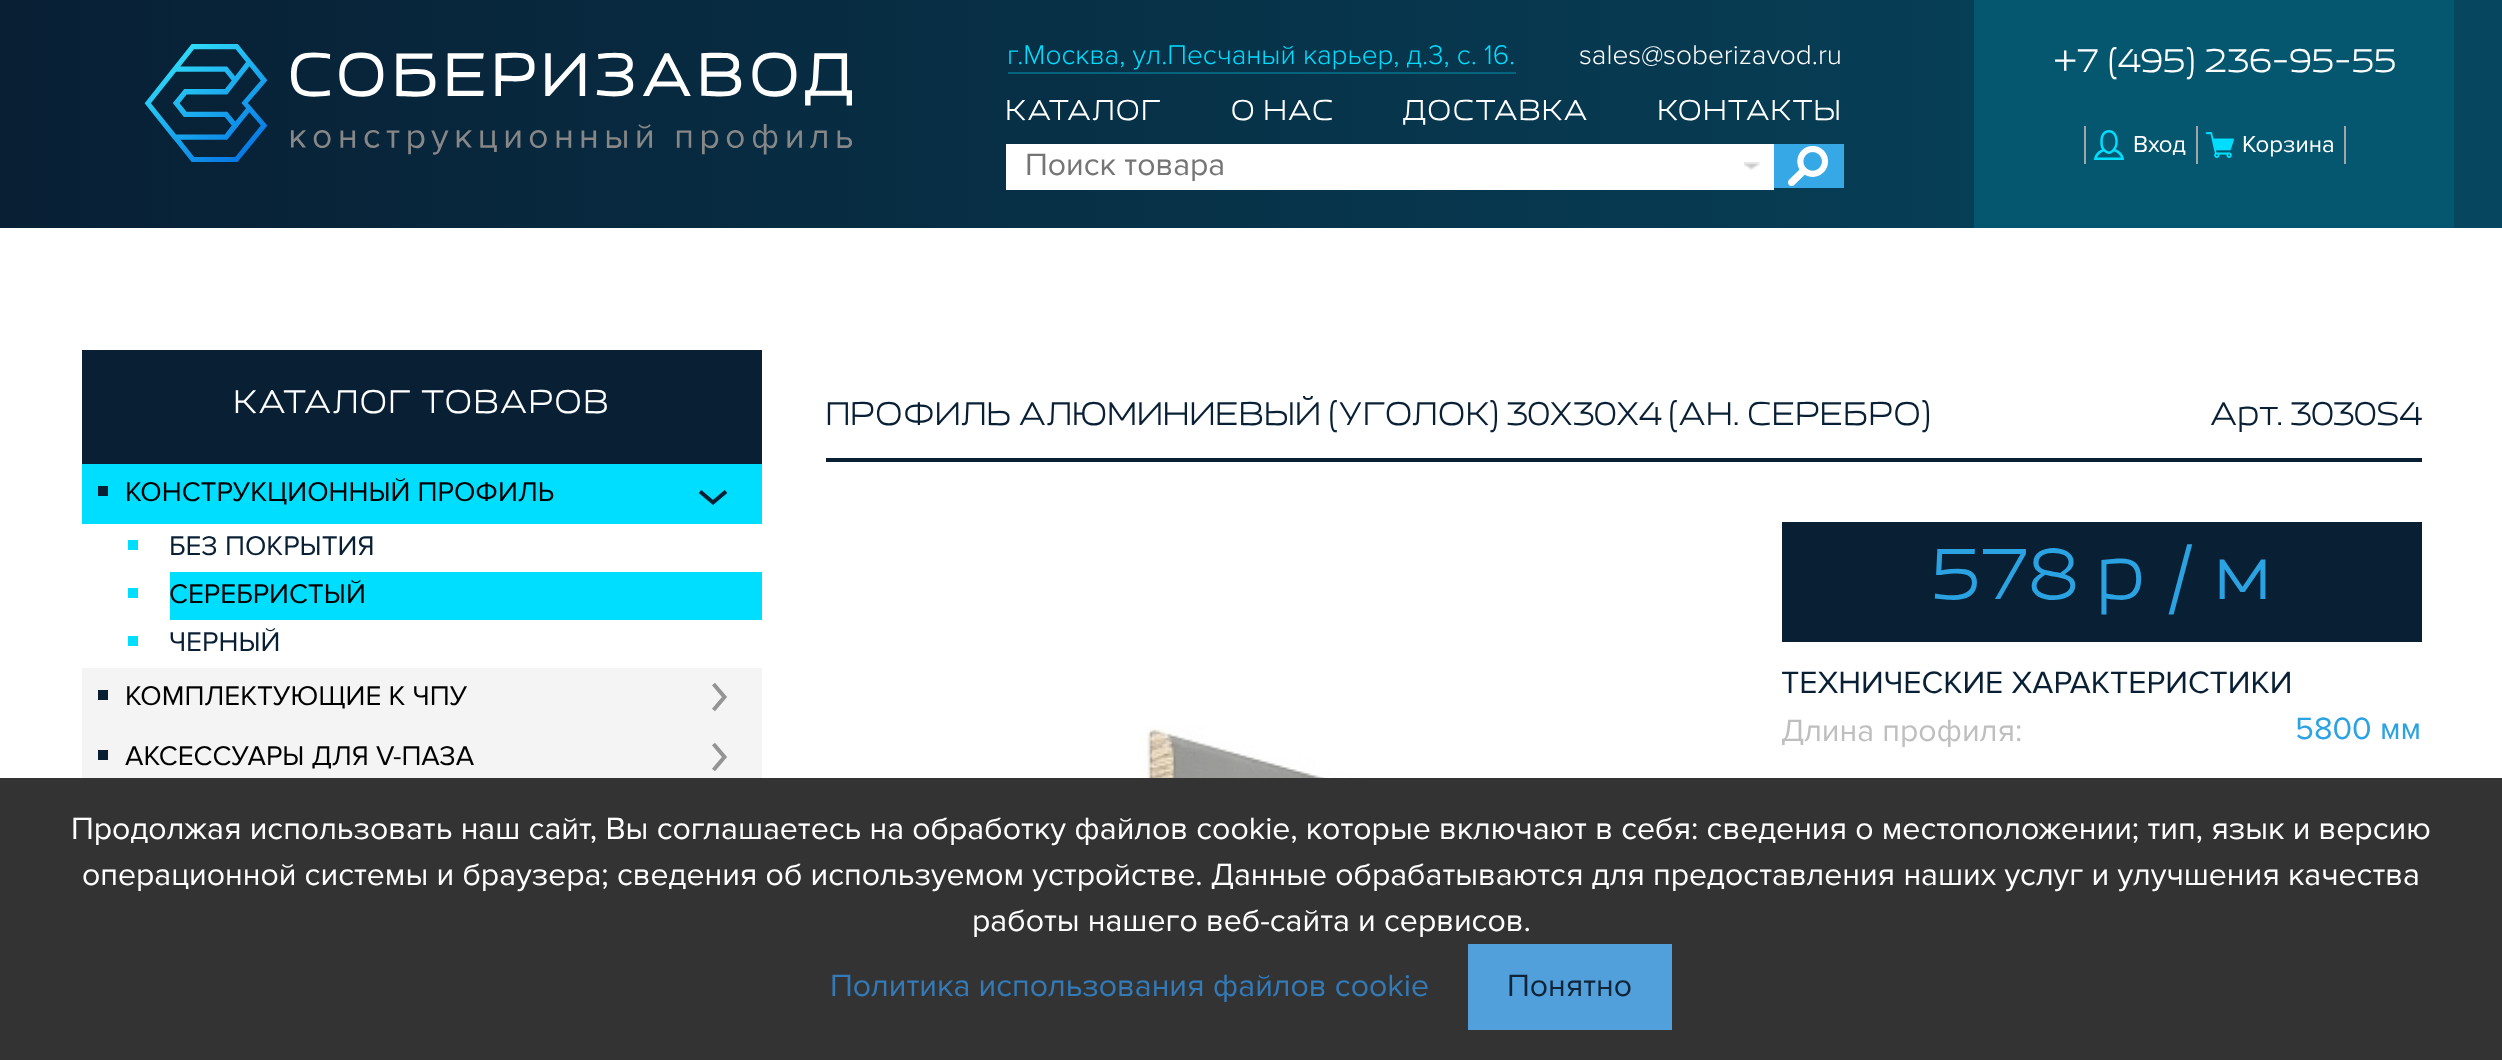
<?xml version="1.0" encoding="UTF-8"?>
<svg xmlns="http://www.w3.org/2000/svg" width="2502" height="1060">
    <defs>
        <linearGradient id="g1" gradientUnits="userSpaceOnUse" x1="0" y1="114" x2="2502" y2="114"><stop offset="0" stop-color="#081F34"/><stop offset="1" stop-color="#06475F"/></linearGradient>
    </defs>
    <rect width="100%" height="100%" fill="#FFFFFF"/>
    <rect x="0" y="0" width="2502" height="228" fill="url(#g1)"/>
    <image x="144" y="44" width="708" height="118" href="img_01.png"/>
    <text x="1007" y="64" font-family="Proxima Nova" font-size="28" font-weight="300" fill="#00DEFF">г.Москва, ул.Песчаный карьер, д.3, с. 16.</text>
    <rect x="1008" y="72" width="508" height="2" fill="#05647D"/>
    <text x="1579" y="64" font-family="Proxima Nova" font-size="28" font-weight="300" fill="#FFFFFF">sales@soberizavod.ru</text>
    <text x="1005" y="120" font-family="'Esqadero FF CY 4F'" font-size="28" fill="#FFFFFF">КАТАЛОГ</text>
    <text x="1230" y="120" font-family="'Esqadero FF CY 4F'" font-size="28" fill="#FFFFFF">О НАС</text>
    <text x="1402" y="120" font-family="'Esqadero FF CY 4F'" font-size="28" fill="#FFFFFF">ДОСТАВКА</text>
    <text x="1657" y="120" font-family="'Esqadero FF CY 4F'" font-size="28" fill="#FFFFFF">КОНТАКТЫ</text>
    <rect x="1006" y="144" width="768" height="46" fill="#FFFFFF"/>
    <image x="1744" y="162" width="16" height="8" href="img_02.png"/>
    <text x="1025" y="175" font-family="Proxima Nova" font-size="32" fill="#757575">Поиск товара</text>
    <rect x="1774" y="144" width="70" height="44" fill="#36A8E5"/>
    <image x="1788" y="146" width="40" height="40" href="img_03.png"/>
    <rect x="1974" y="0" width="480" height="228" fill="#05566F"/>
    <text x="2054" y="72" font-family="'Esqadero FF CY 4F'" font-size="32" fill="#FFFFFF">+7 (495) 236-95-55</text>
    <image x="2094" y="130" width="30" height="30" href="img_04.png"/>
    <text x="2133" y="152" font-family="Proxima Nova" font-size="24" fill="#FFFFFF">Вход</text>
    <rect x="2196" y="126" width="2" height="38" fill="#A5A5A5"/>
    <rect x="2084" y="126" width="2" height="38" fill="#A5A5A5"/>
    <image x="2206" y="132" width="28" height="26" href="img_05.png"/>
    <text x="2242" y="152" font-family="Proxima Nova" font-size="24" fill="#FFFFFF">Корзина</text>
    <rect x="2344" y="126" width="2" height="38" fill="#A5A5A5"/>
    <rect x="82" y="350" width="680" height="114" fill="#081F34"/>
    <text x="233" y="413" font-family="'Esqadero FF CY 4F'" font-size="32" fill="#FFFFFF">КАТАЛОГ ТОВАРОВ</text>
    <rect x="82" y="464" width="680" height="60" fill="#00DEFF"/>
    <path d="M 726 491.5 L 713 502.5 L 700 491.5" fill="none" stroke="#081F34" stroke-width="4"/>
    <rect x="98" y="486" width="10" height="10" fill="#081F34"/>
    <text x="125" y="501" font-family="Proxima Nova" font-size="28" fill="#000000">КОНСТРУКЦИОННЫЙ ПРОФИЛЬ</text>
    <rect x="128" y="540" width="10" height="10" fill="#00DEFF"/>
    <text x="169" y="555" font-family="Proxima Nova" font-size="28" fill="#081F34">БЕЗ ПОКРЫТИЯ</text>
    <rect x="128" y="588" width="10" height="10" fill="#00DEFF"/>
    <rect x="170" y="572" width="592" height="48" fill="#00DEFF"/>
    <text x="169" y="603" font-family="Proxima Nova" font-size="28" fill="#000000">СЕРЕБРИСТЫЙ</text>
    <rect x="128" y="636" width="10" height="10" fill="#00DEFF"/>
    <text x="169" y="651" font-family="Proxima Nova" font-size="28" fill="#081F34">ЧЕРНЫЙ</text>
    <rect x="82" y="668" width="680" height="110" fill="#F4F4F4"/>
    <path d="M 713.5 684 L 724.5 697 L 713.5 710" fill="none" stroke="#949494" stroke-width="4"/>
    <rect x="98" y="690" width="10" height="10" fill="#081F34"/>
    <text x="125" y="705" font-family="Proxima Nova" font-size="28" fill="#000000">КОМПЛЕКТУЮЩИЕ К ЧПУ</text>
    <path d="M 713.5 744 L 724.5 757 L 713.5 770" fill="none" stroke="#949494" stroke-width="4"/>
    <rect x="98" y="750" width="10" height="10" fill="#081F34"/>
    <text x="125" y="765" font-family="Proxima Nova" font-size="28" fill="#000000">АКСЕССУАРЫ ДЛЯ V-ПАЗА</text>
    <rect x="826" y="458" width="1596" height="4" fill="#081F34"/>
    <text x="825" y="425" font-family="'Esqadero FF CY 4F'" font-size="32" letter-spacing="-1" fill="#081F34">ПРОФИЛЬ АЛЮМИНИЕВЫЙ (УГОЛОК) 30Х30Х4 (АН. СЕРЕБРО)</text>
    <text x="2209" y="425" font-family="'Esqadero FF CY 4F'" font-size="32" letter-spacing="-1" fill="#081F34">Арт. 3030S4</text>
    <rect x="1782" y="522" width="640" height="120" fill="#081F34"/>
    <text x="1931" y="599" font-family="'Esqadero FF CY 4F'" font-size="70" fill="#2BA2E1">578 р / м</text>
    <text x="1781" y="693" font-family="Proxima Nova" font-size="32" fill="#081F34">ТЕХНИЧЕСКИЕ ХАРАКТЕРИСТИКИ</text>
    <text x="1781" y="741" font-family="Proxima Nova" font-size="32" fill="#BFBFBF">Длина профиля:</text>
    <text x="2295" y="739" font-family="Proxima Nova" font-size="32" fill="#2BA2E1">5800 мм</text>
    <image x="1126" y="727" width="376" height="51" href="img_06.png"/>
    <rect x="0" y="778" width="2502" height="282" fill="#333333"/>
    <text x="71" y="839" font-family="Proxima Nova" font-size="32" fill="#FFFFFF">Продолжая использовать наш сайт, Вы соглашаетесь на обработку файлов cookie, которые включают в себя: сведения о местоположении; тип, язык и версию</text>
    <text x="82" y="885" font-family="Proxima Nova" font-size="32" fill="#FFFFFF">операционной системы и браузера; сведения об используемом устройстве. Данные обрабатываются для предоставления наших услуг и улучшения качества</text>
    <text x="972" y="931" font-family="Proxima Nova" font-size="32" fill="#FFFFFF">работы нашего веб-сайта и сервисов.</text>
    <text x="830" y="996" font-family="Proxima Nova" font-size="32" fill="#337AB7">Политика использования файлов cookie</text>
    <rect x="1468" y="944" width="204" height="86" fill="#52A0DB"/>
    <text x="1507" y="996" font-family="Proxima Nova" font-size="32" fill="#0F2436">Понятно</text>
</svg>
